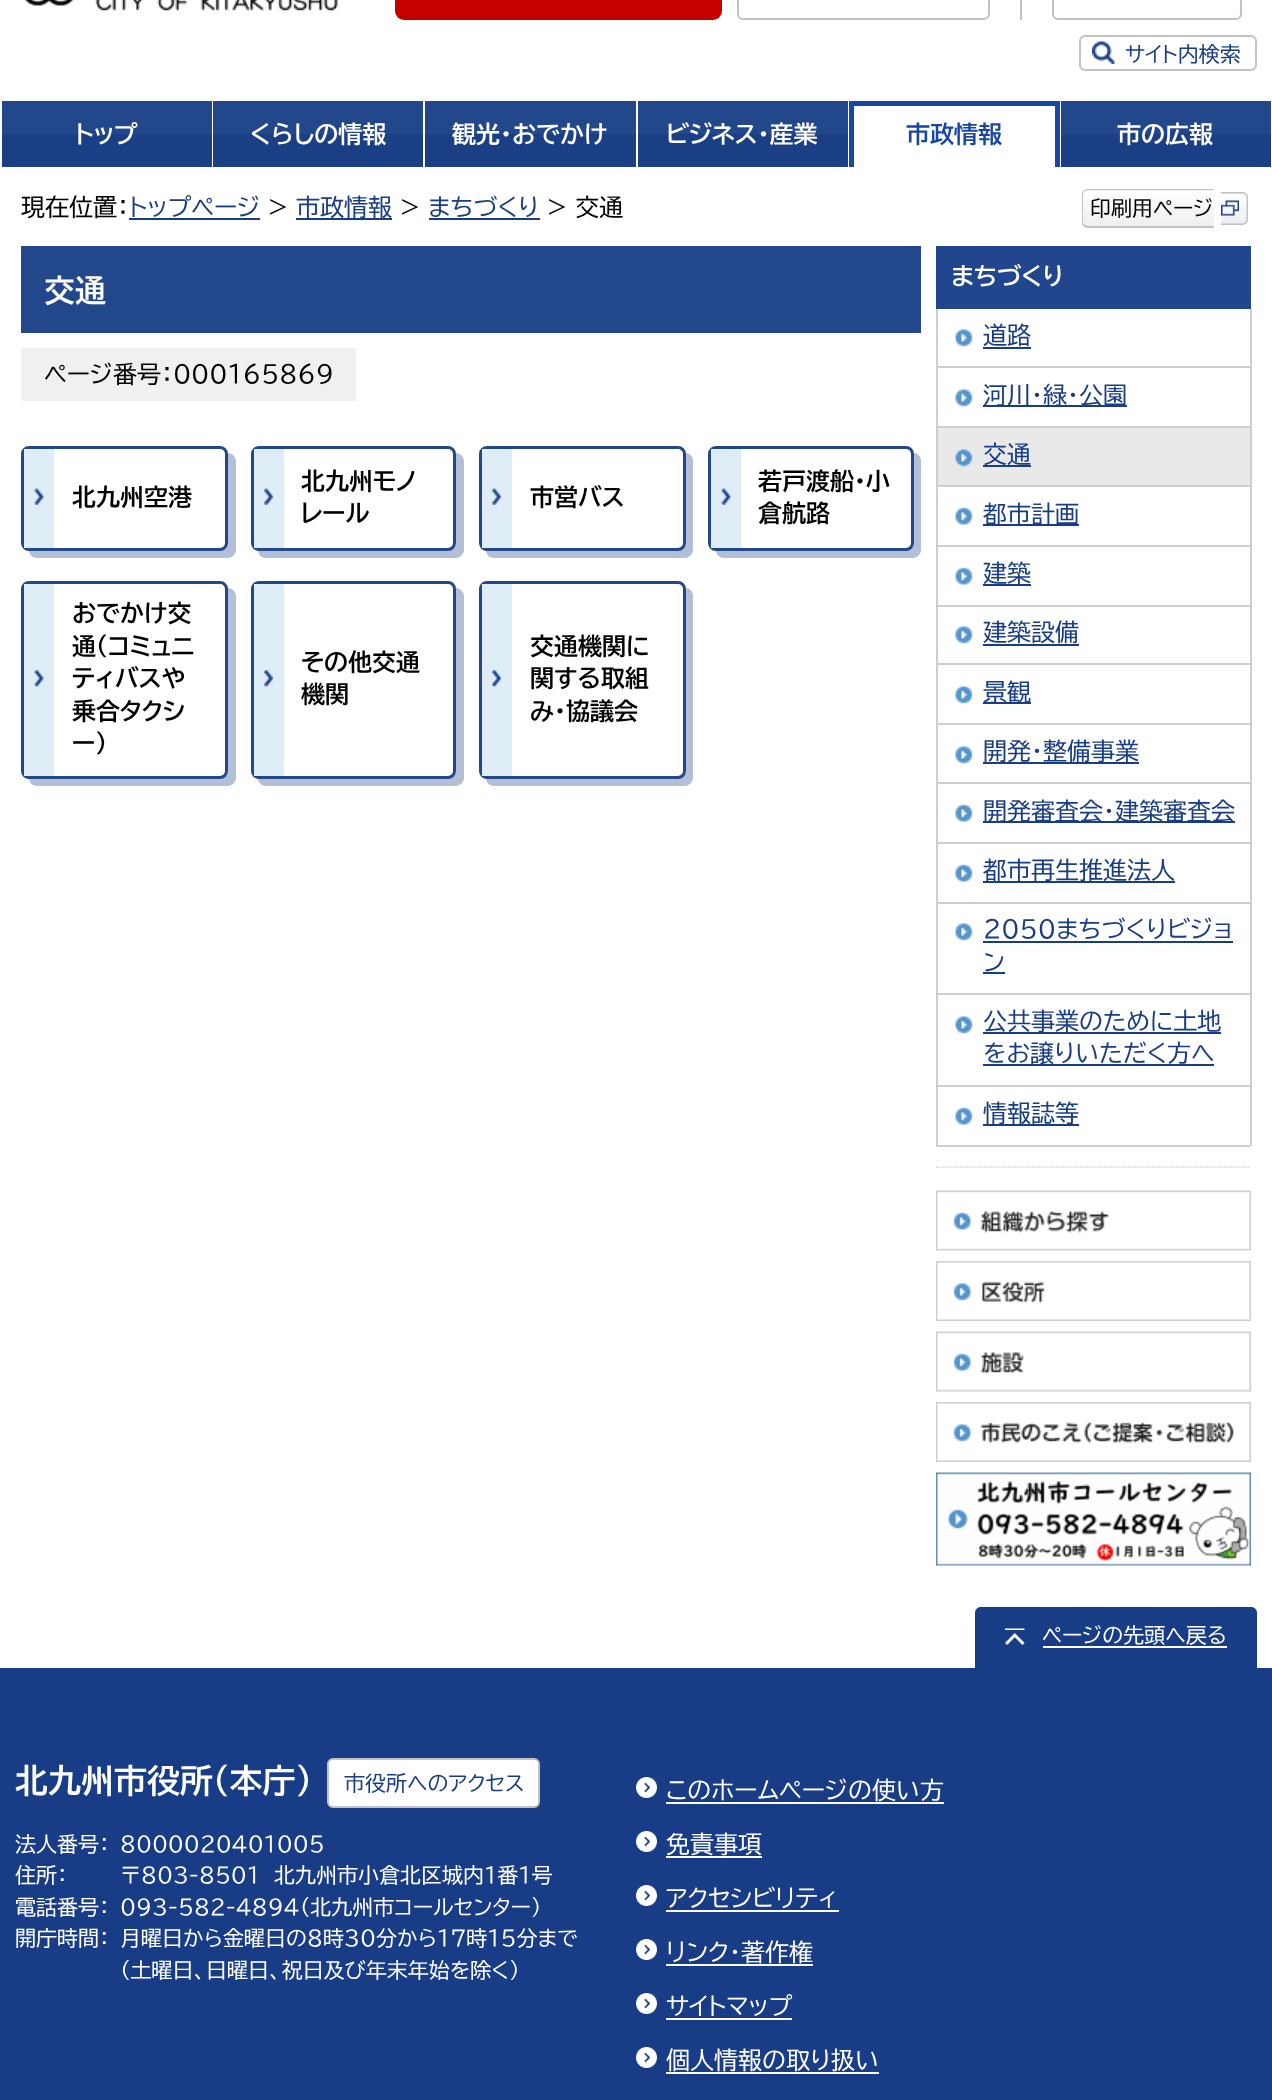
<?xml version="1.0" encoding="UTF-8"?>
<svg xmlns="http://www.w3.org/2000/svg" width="1272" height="2100">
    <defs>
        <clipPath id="clip1"><path d="M 1088 189 H 1214 V 228 H 1088 C 1084.5 228 1082 225.5 1082 222 V 195 C 1082 191.5 1084.5 189 1088 189 Z"/></clipPath>
        <linearGradient id="g1" gradientUnits="userSpaceOnUse" x1="1148" y1="227" x2="1148" y2="191"><stop offset="0" stop-color="#EEEEEE"/><stop offset="1" stop-color="#FFFFFF"/></linearGradient>
        <linearGradient id="g2" gradientUnits="userSpaceOnUse" x1="1148" y1="191" x2="1148" y2="155"><stop offset="0" stop-color="#EEEEEE"/><stop offset="1" stop-color="#FFFFFF"/></linearGradient>
        <clipPath id="clip2"><path d="M 1221 192 H 1242 C 1245.5 192 1248 194.5 1248 198 V 219 C 1248 222.5 1245.5 225 1242 225 H 1221 Z"/></clipPath>
        <linearGradient id="g3" gradientUnits="userSpaceOnUse" x1="1234" y1="194" x2="1234" y2="164"><stop offset="0" stop-color="#EEEEEE"/><stop offset="1" stop-color="#FFFFFF"/></linearGradient>
        <linearGradient id="g4" gradientUnits="userSpaceOnUse" x1="1234" y1="224" x2="1234" y2="194"><stop offset="0" stop-color="#EEEEEE"/><stop offset="1" stop-color="#FFFFFF"/></linearGradient>
    </defs>
    <rect width="100%" height="100%" fill="#FFFFFF"/>
    <image x="25" y="0" width="313" height="11" href="img_01.png"/>
    <rect x="1020" y="0" width="2" height="20" fill="#C2C2C2"/>
    <rect x="395" y="-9" width="327" height="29" rx="9" fill="#C40000"/>
    <rect x="738" y="-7" width="251" height="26" rx="5" fill="none" stroke="#C2C2C2" stroke-width="2"/>
    <rect x="1053" y="-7" width="188" height="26" rx="5" fill="none" stroke="#C2C2C2" stroke-width="2"/>
    <rect x="1080" y="36" width="176" height="34" rx="5" fill="none" stroke="#C2C2C2" stroke-width="2"/>
    <image x="1092" y="41" width="23" height="23" href="img_02.png"/>
    <text x="1125" y="62" font-family="BIZ UDPGothic" font-size="21" fill="#183D86">サイト内検索</text>
    <rect x="2" y="134" width="210" height="33" fill="#1B3F84"/>
    <rect x="2" y="101" width="210" height="33" fill="#23478B"/>
    <text x="75" y="143" font-family="BIZ UDPGothic" font-size="24" font-weight="700" fill="#FFFFFF">トップ</text>
    <rect x="213" y="134" width="210" height="33" fill="#1B3F84"/>
    <rect x="213" y="101" width="210" height="33" fill="#23478B"/>
    <text x="250" y="143" font-family="BIZ UDPGothic" font-size="24" font-weight="700" fill="#FFFFFF">くらしの情報</text>
    <rect x="425" y="134" width="211" height="33" fill="#1B3F84"/>
    <rect x="425" y="101" width="211" height="33" fill="#23478B"/>
    <text x="452" y="143" font-family="BIZ UDPGothic" font-size="24" font-weight="700" fill="#FFFFFF">観光・おでかけ</text>
    <rect x="638" y="134" width="210" height="33" fill="#1B3F84"/>
    <rect x="638" y="101" width="210" height="33" fill="#23478B"/>
    <text x="666" y="143" font-family="BIZ UDPGothic" font-size="24" font-weight="700" fill="#FFFFFF">ビジネス・産業</text>
    <rect x="849" y="101" width="210" height="5" fill="#1647A6"/>
    <rect x="1055" y="101" width="5" height="66" fill="#1647A6"/>
    <rect x="849" y="101" width="5" height="66" fill="#1647A6"/>
    <text x="906" y="143" font-family="BIZ UDPGothic" font-size="24" font-weight="700" fill="#1647A6">市政情報</text>
    <rect x="1061" y="134" width="210" height="33" fill="#1B3F84"/>
    <rect x="1061" y="101" width="210" height="33" fill="#23478B"/>
    <text x="1117" y="143" font-family="BIZ UDPGothic" font-size="24" font-weight="700" fill="#FFFFFF">市の広報</text>
    <text x="21" y="216" font-family="BIZ UDPGothic" font-size="24" fill="#000000">現在位置：</text>
    <text x="129" y="216" font-family="BIZ UDPGothic" font-size="24" fill="#183D86">トップページ</text>
    <rect x="129" y="218" width="131" height="2" fill="#183D86"/>
    <text x="268" y="216" font-family="BIZ UDPGothic" font-size="24" fill="#000000">&gt;</text>
    <rect x="296" y="218" width="96" height="2" fill="#183D86"/>
    <text x="296" y="216" font-family="BIZ UDPGothic" font-size="24" fill="#183D86">市政情報</text>
    <text x="400" y="216" font-family="BIZ UDPGothic" font-size="24" fill="#000000">&gt;</text>
    <text x="428" y="216" font-family="BIZ UDPGothic" font-size="24" fill="#183D86">まちづくり</text>
    <rect x="429" y="218" width="111" height="2" fill="#183D86"/>
    <text x="547" y="216" font-family="BIZ UDPGothic" font-size="24" fill="#000000">&gt; 交通</text>
    <g clip-path="url(#clip1)">
        <rect x="1082" y="191" width="132" height="36" fill="url(#g1)"/>
        <rect x="1082" y="189" width="132" height="2" fill="url(#g2)"/>
    </g>
    <path d="M 1088 189 H 1214 V 228 H 1088 C 1084 228 1082 225 1082 222 V 195 C 1082 192 1084 189 1088 189 Z M 1088 190 H 1214 V 226 H 1088 C 1085 226 1083 224 1083 222 V 195 C 1083 193 1085 190 1088 190 Z" fill="#C2C2C2" fill-rule="evenodd"/>
    <text x="1090" y="216" font-family="BIZ UDPGothic" font-size="21" fill="#000000">印刷用ページ</text>
    <g clip-path="url(#clip2)">
        <rect x="1221" y="192" width="27" height="2" fill="url(#g3)"/>
        <rect x="1221" y="194" width="27" height="30" fill="url(#g4)"/>
    </g>
    <path d="M 1221 192 H 1242 C 1245.5 192 1248 194.5 1248 198 V 219 C 1248 222.5 1245.5 225 1242 225 H 1221 Z M 1221 193.5 H 1242 C 1244.5 193.5 1246.5 195.5 1246.5 198 V 219 C 1246.5 221.5 1244.5 223.5 1242 223.5 H 1221 Z" fill="#C2C2C2" fill-rule="evenodd"/>
    <image x="1221" y="200" width="18" height="16" href="img_03.png"/>
    <rect x="21" y="246" width="900" height="87" fill="#23478B"/>
    <text x="44" y="302" font-family="BIZ UDPGothic" font-size="31" font-weight="700" fill="#FFFFFF">交通</text>
    <rect x="21" y="348" width="335" height="53" fill="#F0F0F0"/>
    <text x="44" y="383" font-family="BIZ UDPGothic" font-size="24" fill="#000000">ページ番号：000165869</text>
    <path d="M 29 550 C 29 555 33 558 37 558 H 228 C 232 558 236 554 236 550 V 461 C 236 457 232 453 228 453 V 543 C 228 547 225 550 220 550 Z" fill="#B2BFD6"/>
    <rect x="22.5" y="447.5" width="204" height="102" rx="6.5" fill="none" stroke="#23478B" stroke-width="3"/>
    <rect x="24" y="449" width="30" height="99" fill="#DFEEF6"/>
    <image x="34" y="488" width="10" height="17" href="img_04.png"/>
    <text x="72" y="506" font-family="BIZ UDPGothic" font-size="24" font-weight="700" fill="#000000">北九州空港</text>
    <path d="M 258 550 C 258 555 262 558 266 558 H 456 C 460 558 464 554 464 550 V 461 C 464 457 460 453 456 453 V 543 C 456 547 453 550 448 550 Z" fill="#B2BFD6"/>
    <rect x="252.5" y="447.5" width="202" height="102" rx="6.5" fill="none" stroke="#23478B" stroke-width="3"/>
    <rect x="254" y="449" width="30" height="99" fill="#DFEEF6"/>
    <image x="264" y="488" width="9" height="17" href="img_05.png"/>
    <text font-family="BIZ UDPGothic" font-size="24" font-weight="700" fill="#000000">
        <tspan x="301" y="490">北九州モノ</tspan>
        <tspan x="301" y="522">レール</tspan>
    </text>
    <path d="M 486 550 C 486 555 490 558 494 558 H 685 C 689 558 693 554 693 550 V 461 C 693 457 690 453 686 453 V 543 C 686 547 682 550 678 550 Z" fill="#B2BFD6"/>
    <rect x="480.5" y="447.5" width="204" height="102" rx="6.5" fill="none" stroke="#23478B" stroke-width="3"/>
    <rect x="482" y="449" width="30" height="99" fill="#DFEEF6"/>
    <image x="492" y="488" width="9" height="17" href="img_05.png"/>
    <text x="530" y="506" font-family="BIZ UDPGothic" font-size="24" font-weight="700" fill="#000000">市営バス</text>
    <path d="M 716 550 C 716 555 720 558 724 558 H 913 C 917 558 921 554 921 550 V 461 C 921 457 918 453 914 453 V 543 C 914 547 910 550 906 550 Z" fill="#B2BFD6"/>
    <rect x="709.5" y="447.5" width="203" height="102" rx="6.5" fill="none" stroke="#23478B" stroke-width="3"/>
    <rect x="711" y="449" width="30" height="99" fill="#DFEEF6"/>
    <image x="721" y="488" width="10" height="17" href="img_06.png"/>
    <text font-family="BIZ UDPGothic" font-size="24" font-weight="700" fill="#000000">
        <tspan x="758" y="490">若戸渡船・小</tspan>
        <tspan x="758" y="522">倉航路</tspan>
    </text>
    <path d="M 29 778 C 29 783 33 786 37 786 H 228 C 232 786 236 782 236 778 V 596 C 236 592 232 588 228 588 V 771 C 228 775 225 778 220 778 Z" fill="#B2BFD6"/>
    <rect x="22.5" y="582.5" width="204" height="195" rx="6.5" fill="none" stroke="#23478B" stroke-width="3"/>
    <rect x="24" y="584" width="30" height="192" fill="#DFEEF6"/>
    <image x="34" y="670" width="10" height="17" href="img_07.png"/>
    <text font-family="BIZ UDPGothic" font-size="24" font-weight="700" fill="#000000">
        <tspan x="72" y="622">おでかけ交</tspan>
        <tspan x="72" y="655">通（コミュニ</tspan>
        <tspan x="72" y="687">ティバスや</tspan>
        <tspan x="72" y="720">乗合タクシ</tspan>
        <tspan x="72" y="752">ー）</tspan>
    </text>
    <path d="M 258 778 C 258 783 262 786 266 786 H 456 C 460 786 464 782 464 778 V 596 C 464 592 460 588 456 588 V 771 C 456 775 453 778 448 778 Z" fill="#B2BFD6"/>
    <rect x="252.5" y="582.5" width="202" height="195" rx="6.5" fill="none" stroke="#23478B" stroke-width="3"/>
    <rect x="254" y="584" width="30" height="192" fill="#DFEEF6"/>
    <image x="264" y="670" width="9" height="17" href="img_08.png"/>
    <text font-family="BIZ UDPGothic" font-size="24" font-weight="700" fill="#000000">
        <tspan x="301" y="671">その他交通</tspan>
        <tspan x="301" y="703">機関</tspan>
    </text>
    <path d="M 486 778 C 486 783 490 786 494 786 H 685 C 689 786 693 782 693 778 V 596 C 693 592 690 588 686 588 V 771 C 686 775 682 778 678 778 Z" fill="#B2BFD6"/>
    <rect x="480.5" y="582.5" width="204" height="195" rx="6.5" fill="none" stroke="#23478B" stroke-width="3"/>
    <rect x="482" y="584" width="30" height="192" fill="#DFEEF6"/>
    <image x="492" y="670" width="9" height="17" href="img_08.png"/>
    <text font-family="BIZ UDPGothic" font-size="24" font-weight="700" fill="#000000">
        <tspan x="530" y="655">交通機関に</tspan>
        <tspan x="530" y="687">関する取組</tspan>
        <tspan x="530" y="720">み・協議会</tspan>
    </text>
    <rect x="936" y="246" width="315" height="63" fill="#21468D"/>
    <text x="951" y="285" font-family="BIZ UDPGothic" font-size="24" font-weight="700" fill="#FFFFFF">まちづくり</text>
    <rect x="1250" y="309" width="2" height="837" fill="#CECECE"/>
    <rect x="936" y="366" width="314" height="2" fill="#CECECE"/>
    <rect x="936" y="309" width="2" height="59" fill="#CECECE"/>
    <image x="955" y="329" width="18" height="18" href="img_09.png"/>
    <text x="983" y="344" font-family="BIZ UDPGothic" font-size="24" fill="#183D86">道路</text>
    <rect x="983" y="347" width="48" height="2" fill="#183D86"/>
    <rect x="936" y="426" width="314" height="2" fill="#CECECE"/>
    <rect x="936" y="368" width="2" height="60" fill="#CECECE"/>
    <image x="955" y="389" width="18" height="18" href="img_09.png"/>
    <rect x="983" y="405" width="144" height="2" fill="#183D86"/>
    <text x="983" y="404" font-family="BIZ UDPGothic" font-size="24" fill="#183D86">河川・緑・公園</text>
    <rect x="938" y="428" width="312" height="57" fill="#E9E9E9"/>
    <rect x="936" y="485" width="314" height="2" fill="#CECECE"/>
    <rect x="936" y="428" width="2" height="58" fill="#CECECE"/>
    <image x="955" y="449" width="18" height="18" href="img_10.png"/>
    <rect x="983" y="465" width="48" height="2" fill="#183D86"/>
    <text x="983" y="463" font-family="BIZ UDPGothic" font-size="24" fill="#183D86">交通</text>
    <rect x="936" y="545" width="314" height="2" fill="#CECECE"/>
    <rect x="936" y="486" width="2" height="60" fill="#CECECE"/>
    <image x="955" y="507" width="18" height="18" href="img_11.png"/>
    <rect x="983" y="524" width="96" height="2" fill="#183D86"/>
    <text x="983" y="523" font-family="BIZ UDPGothic" font-size="24" fill="#183D86">都市計画</text>
    <rect x="936" y="605" width="314" height="2" fill="#CECECE"/>
    <rect x="936" y="546" width="2" height="60" fill="#CECECE"/>
    <image x="955" y="567" width="18" height="18" href="img_11.png"/>
    <rect x="983" y="584" width="48" height="2" fill="#183D86"/>
    <text x="983" y="582" font-family="BIZ UDPGothic" font-size="24" fill="#183D86">建築</text>
    <rect x="936" y="663" width="314" height="2" fill="#CECECE"/>
    <rect x="936" y="606" width="2" height="59" fill="#CECECE"/>
    <image x="955" y="626" width="18" height="18" href="img_09.png"/>
    <text x="983" y="641" font-family="BIZ UDPGothic" font-size="24" fill="#183D86">建築設備</text>
    <rect x="983" y="644" width="96" height="2" fill="#183D86"/>
    <rect x="936" y="723" width="314" height="2" fill="#CECECE"/>
    <rect x="936" y="665" width="2" height="60" fill="#CECECE"/>
    <image x="955" y="686" width="18" height="18" href="img_09.png"/>
    <rect x="983" y="702" width="48" height="2" fill="#183D86"/>
    <text x="983" y="701" font-family="BIZ UDPGothic" font-size="24" fill="#183D86">景観</text>
    <rect x="936" y="782" width="314" height="2" fill="#CECECE"/>
    <rect x="936" y="725" width="2" height="58" fill="#CECECE"/>
    <image x="955" y="746" width="18" height="18" href="img_09.png"/>
    <rect x="983" y="762" width="156" height="2" fill="#183D86"/>
    <text x="983" y="760" font-family="BIZ UDPGothic" font-size="24" fill="#183D86">開発・整備事業</text>
    <rect x="936" y="842" width="314" height="2" fill="#CECECE"/>
    <rect x="936" y="783" width="2" height="60" fill="#CECECE"/>
    <image x="955" y="804" width="18" height="18" href="img_11.png"/>
    <rect x="983" y="821" width="252" height="2" fill="#183D86"/>
    <text x="983" y="820" font-family="BIZ UDPGothic" font-size="24" fill="#183D86">開発審査会・建築審査会</text>
    <rect x="936" y="902" width="314" height="2" fill="#CECECE"/>
    <rect x="936" y="843" width="2" height="60" fill="#CECECE"/>
    <image x="955" y="864" width="18" height="18" href="img_11.png"/>
    <rect x="983" y="881" width="192" height="2" fill="#183D86"/>
    <text x="983" y="879" font-family="BIZ UDPGothic" font-size="24" fill="#183D86">都市再生推進法人</text>
    <rect x="936" y="993" width="314" height="2" fill="#CECECE"/>
    <rect x="936" y="903" width="2" height="92" fill="#CECECE"/>
    <image x="955" y="923" width="18" height="18" href="img_09.png"/>
    <text x="983" y="938" font-family="BIZ UDPGothic" font-size="24" fill="#183D86">2050まちづくりビジョ</text>
    <rect x="983" y="941" width="250" height="2" fill="#183D86"/>
    <text x="983" y="971" font-family="BIZ UDPGothic" font-size="24" fill="#183D86">ン</text>
    <rect x="983" y="972" width="22" height="2" fill="#183D86"/>
    <rect x="936" y="1085" width="314" height="2" fill="#CECECE"/>
    <rect x="936" y="995" width="2" height="91" fill="#CECECE"/>
    <image x="955" y="1016" width="18" height="18" href="img_09.png"/>
    <rect x="983" y="1032" width="238" height="2" fill="#183D86"/>
    <text x="983" y="1030" font-family="BIZ UDPGothic" font-size="24" fill="#183D86">公共事業のために土地</text>
    <rect x="983" y="1064" width="231" height="2" fill="#183D86"/>
    <text x="983" y="1062" font-family="BIZ UDPGothic" font-size="24" fill="#183D86">をお譲りいただく方へ</text>
    <rect x="936" y="1145" width="314" height="2" fill="#CECECE"/>
    <rect x="936" y="1086" width="2" height="60" fill="#CECECE"/>
    <image x="955" y="1107" width="18" height="18" href="img_11.png"/>
    <rect x="983" y="1124" width="96" height="2" fill="#183D86"/>
    <text x="983" y="1122" font-family="BIZ UDPGothic" font-size="24" fill="#183D86">情報誌等</text>
    <image x="936" y="1166" width="314" height="2" href="img_12.png"/>
    <image x="936" y="1190" width="315" height="61" href="img_13.png"/>
    <image x="936" y="1261" width="315" height="60" href="img_14.png"/>
    <image x="936" y="1331" width="315" height="61" href="img_15.png"/>
    <image x="936" y="1402" width="315" height="60" href="img_16.png"/>
    <image x="936" y="1472" width="315" height="94" href="img_17.png"/>
    <path d="M 981 1607 H 1251 C 1254.5 1607 1257 1609.5 1257 1613 V 1668 H 975 V 1613 C 975 1609.5 977.5 1607 981 1607 Z" fill="#183D86"/>
    <image x="1005" y="1628" width="20" height="17" href="img_18.png"/>
    <text x="1042" y="1643" font-family="BIZ UDPGothic" font-size="21" fill="#FFFFFF">ページの先頭へ戻る</text>
    <rect x="1043" y="1646" width="184" height="2" fill="#FFFFFF"/>
    <rect x="0" y="1668" width="1272" height="432" fill="#183D86"/>
    <text x="15" y="1793" font-family="BIZ UDPGothic" font-size="33" font-weight="700" fill="#FFFFFF">北九州市役所（本庁）</text>
    <rect x="328" y="1759" width="211" height="48" rx="5" fill="#FFFFFF" stroke="#C2C2C2" stroke-width="2"/>
    <text x="344" y="1791" font-family="BIZ UDPGothic" font-size="21" fill="#183D86">市役所へのアクセス</text>
    <image x="636" y="1777" width="21" height="21" href="img_19.png"/>
    <text x="666" y="1799" font-family="BIZ UDPGothic" font-size="24" fill="#FFFFFF">このホームページの使い方</text>
    <rect x="666" y="1802" width="278" height="2" fill="#FFFFFF"/>
    <image x="636" y="1831" width="21" height="21" href="img_19.png"/>
    <text x="666" y="1853" font-family="BIZ UDPGothic" font-size="24" fill="#FFFFFF">免責事項</text>
    <rect x="666" y="1856" width="96" height="2" fill="#FFFFFF"/>
    <image x="636" y="1885" width="21" height="21" href="img_19.png"/>
    <text x="666" y="1907" font-family="BIZ UDPGothic" font-size="24" fill="#FFFFFF">アクセシビリティ</text>
    <rect x="666" y="1910" width="173" height="2" fill="#FFFFFF"/>
    <image x="636" y="1939" width="21" height="21" href="img_19.png"/>
    <text x="666" y="1961" font-family="BIZ UDPGothic" font-size="24" fill="#FFFFFF">リンク・著作権</text>
    <rect x="666" y="1964" width="147" height="2" fill="#FFFFFF"/>
    <image x="636" y="1993" width="21" height="21" href="img_19.png"/>
    <text x="666" y="2015" font-family="BIZ UDPGothic" font-size="24" fill="#FFFFFF">サイトマップ</text>
    <rect x="666" y="2018" width="126" height="2" fill="#FFFFFF"/>
    <image x="636" y="2047" width="21" height="21" href="img_19.png"/>
    <text x="666" y="2069" font-family="BIZ UDPGothic" font-size="24" fill="#FFFFFF">個人情報の取り扱い</text>
    <rect x="666" y="2072" width="213" height="2" fill="#FFFFFF"/>
    <text x="15" y="1852" font-family="BIZ UDPGothic" font-size="21" fill="#FFFFFF">法人番号：</text>
    <text x="120" y="1852" font-family="BIZ UDPGothic" font-size="21" fill="#FFFFFF">8000020401005</text>
    <text x="15" y="1883" font-family="BIZ UDPGothic" font-size="21" fill="#FFFFFF">住所：</text>
    <text x="120" y="1883" font-family="BIZ UDPGothic" font-size="21" fill="#FFFFFF">〒803-8501　北九州市小倉北区城内1番1号</text>
    <text x="15" y="1915" font-family="BIZ UDPGothic" font-size="21" fill="#FFFFFF">電話番号：</text>
    <text x="120" y="1915" font-family="BIZ UDPGothic" font-size="21" fill="#FFFFFF">093-582-4894（北九州市コールセンター）</text>
    <text x="15" y="1946" font-family="BIZ UDPGothic" font-size="21" fill="#FFFFFF">開庁時間：</text>
    <text font-family="BIZ UDPGothic" font-size="21" fill="#FFFFFF">
        <tspan x="120" y="1946">月曜日から金曜日の8時30分から17時15分まで</tspan>
        <tspan x="120" y="1978">（土曜日、日曜日、祝日及び年末年始を除く）</tspan>
    </text>
</svg>
